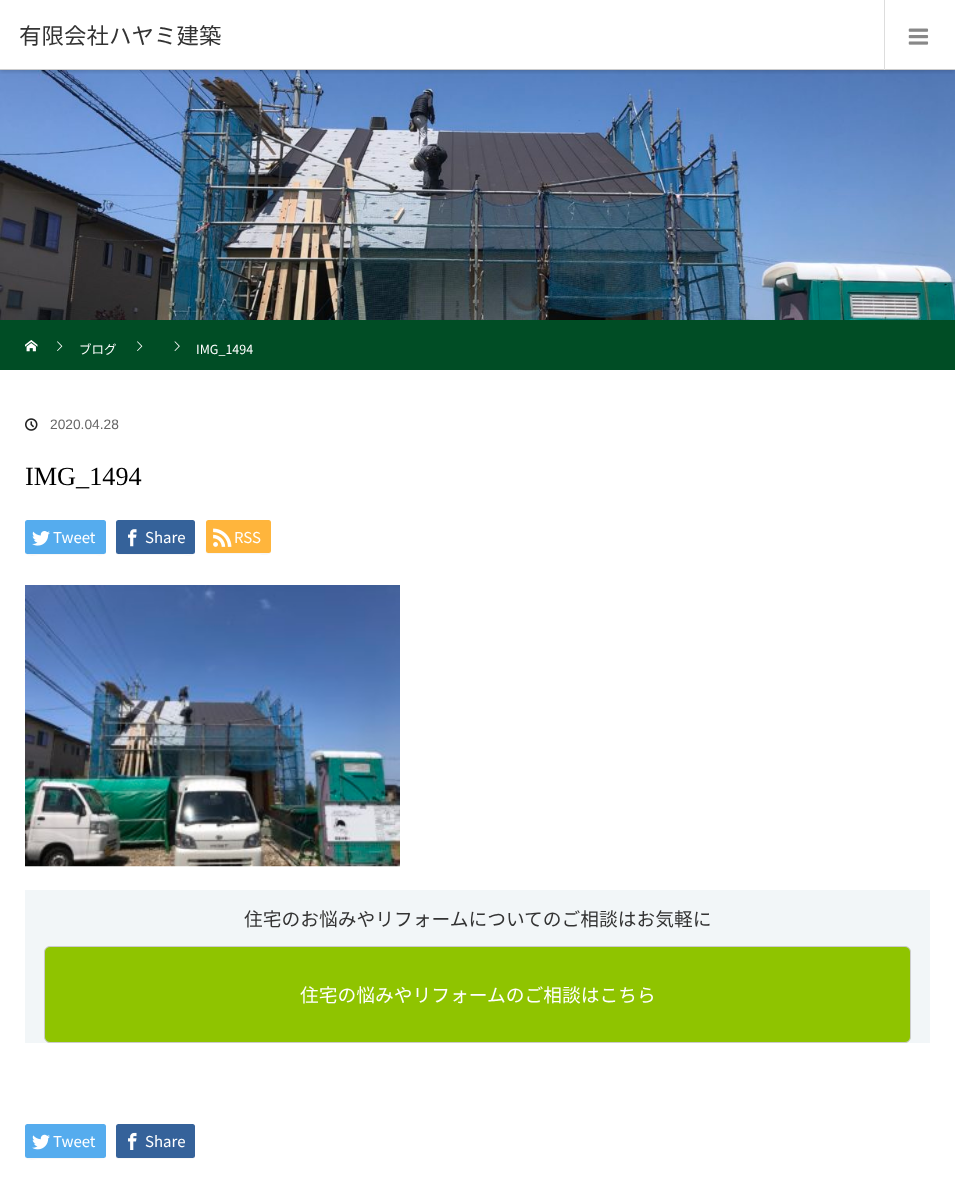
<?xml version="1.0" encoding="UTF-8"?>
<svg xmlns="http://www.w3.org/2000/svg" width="955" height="1185">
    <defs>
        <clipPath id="clip1"><rect x="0" y="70" width="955" height="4"/></clipPath>
        <filter id="blur1" x="-50%" y="-200%" width="200%" height="500%"><feGaussianBlur stdDeviation="2.5"/></filter>
    </defs>
    <rect width="100%" height="100%" fill="#FFFFFF"/>
    <image x="0" y="70" width="955" height="250" href="img_02.png"/>
    <g clip-path="url(#clip1)">
        <rect x="0" y="1" width="955" height="70" fill="#000000" fill-opacity="0.2" filter="url(#blur1)"/>
    </g>
    <rect x="0" y="69" width="955" height="1" fill="#CCCCCC"/>
    <text x="19" y="44" font-family="Noto Sans JP" font-size="22.5" fill="#333333">有限会社ハヤミ建築</text>
    <rect x="884" y="0" width="1" height="70" fill="#DDDDDD"/>
    <image x="908" y="28" width="21" height="17" href="img_01.png"/>
    <rect x="0" y="320" width="955" height="50" fill="#004D25"/>
    <image x="25" y="340" width="13" height="12" href="img_03.png"/>
    <image x="57" y="341" width="6" height="10" href="img_04.png"/>
    <text x="79" y="354" font-family="Noto Sans JP" font-size="12.5" fill="#FFFFFF">ブログ</text>
    <image x="137" y="341" width="6" height="10" href="img_04.png"/>
    <image x="174" y="341" width="6" height="10" href="img_05.png"/>
    <text x="196" y="354" font-family="Noto Sans JP" font-size="12.5" fill="#FFFFFF">IMG_1494</text>
    <image x="25" y="418" width="13" height="13" href="img_06.png"/>
    <text x="50" y="429" font-family="Liberation Sans" font-size="13.75" fill="#666666">2020.04.28</text>
    <text x="25" y="485" font-family="Liberation Serif" font-size="26.25" fill="#000000">IMG_1494</text>
    <path d="M 25 551 C 25 558 36 555 40 555 H 91 C 96 555 106 557 106 552 C 106 553 105 554 104 554 H 28 C 26 554 25 553 25 551 Z" fill="#F7F7F7"/>
    <rect x="25" y="520" width="81" height="34" rx="2.5" fill="#55ACEE"/>
    <image x="32" y="531" width="18" height="15" href="img_07.png"/>
    <text x="53" y="543" font-family="Noto Sans JP" font-size="15" fill="#FFFFFF">Tweet</text>
    <path d="M 116 522 V 538 C 116 557 112 555 131 555 H 180 C 185 555 195 558 195 551 C 195 556 185 554 180 554 H 131 C 118 554 116 557 116 546 Z" fill="#F7F7F7"/>
    <rect x="116" y="520" width="79" height="34" rx="2.5" fill="#35629A"/>
    <image x="128" y="529" width="9" height="18" href="img_08.png"/>
    <text x="145" y="543" font-family="Noto Sans JP" font-size="15" fill="#FFFFFF">Share</text>
    <path d="M 206 522 V 538 C 206 555 202 554 218 554 H 258 C 260 554 271 557 271 551 C 271 552 270 552 269 552 H 219 C 207 552 206 555 206 545 Z" fill="#F7F7F7"/>
    <rect x="206" y="520" width="65" height="33" rx="2.5" fill="#FFB53C"/>
    <image x="213" y="528" width="19" height="19" href="img_09.png"/>
    <text x="234" y="543" font-family="Noto Sans JP" font-size="15" fill="#FFFFFF">RSS</text>
    <image x="25" y="585" width="375" height="282" href="img_10.png"/>
    <rect x="25" y="890" width="905" height="153" fill="#F2F6F8"/>
    <text x="244" y="926" font-family="Noto Sans JP" font-size="18.75" fill="#333333">住宅のお悩みやリフォームについてのご相談はお気軽に</text>
    <rect x="44.5" y="946.5" width="866" height="96" rx="5.5" fill="#8FC400" stroke="#CCCCCC"/>
    <text x="300" y="1002" font-family="Noto Sans JP" font-size="18.75" fill="#FFFFFF">住宅の悩みやリフォームのご相談はこちら</text>
    <path d="M 25 1155 C 25 1162 35 1159 40 1159 H 66 C 70 1159 104 1160 105 1158 L 106 1156 C 106 1157 105 1158 104 1158 H 28 C 26 1158 25 1156 25 1155 Z" fill="#F7F7F7"/>
    <rect x="25" y="1124" width="81" height="34" rx="2.5" fill="#55ACEE"/>
    <image x="32" y="1134" width="18" height="16" href="img_11.png"/>
    <text x="53" y="1147" font-family="Noto Sans JP" font-size="15" fill="#FFFFFF">Tweet</text>
    <path d="M 116 1126 V 1152 C 116 1153 115 1159 118 1159 H 192 C 195 1159 195 1157 195 1155 C 195 1156 194 1158 192 1158 H 119 C 117 1158 116 1156 116 1155 Z" fill="#F7F7F7"/>
    <rect x="116" y="1124" width="79" height="34" rx="2.5" fill="#35629A"/>
    <image x="128" y="1132" width="9" height="18" href="img_12.png"/>
    <text x="145" y="1147" font-family="Noto Sans JP" font-size="15" fill="#FFFFFF">Share</text>
</svg>
